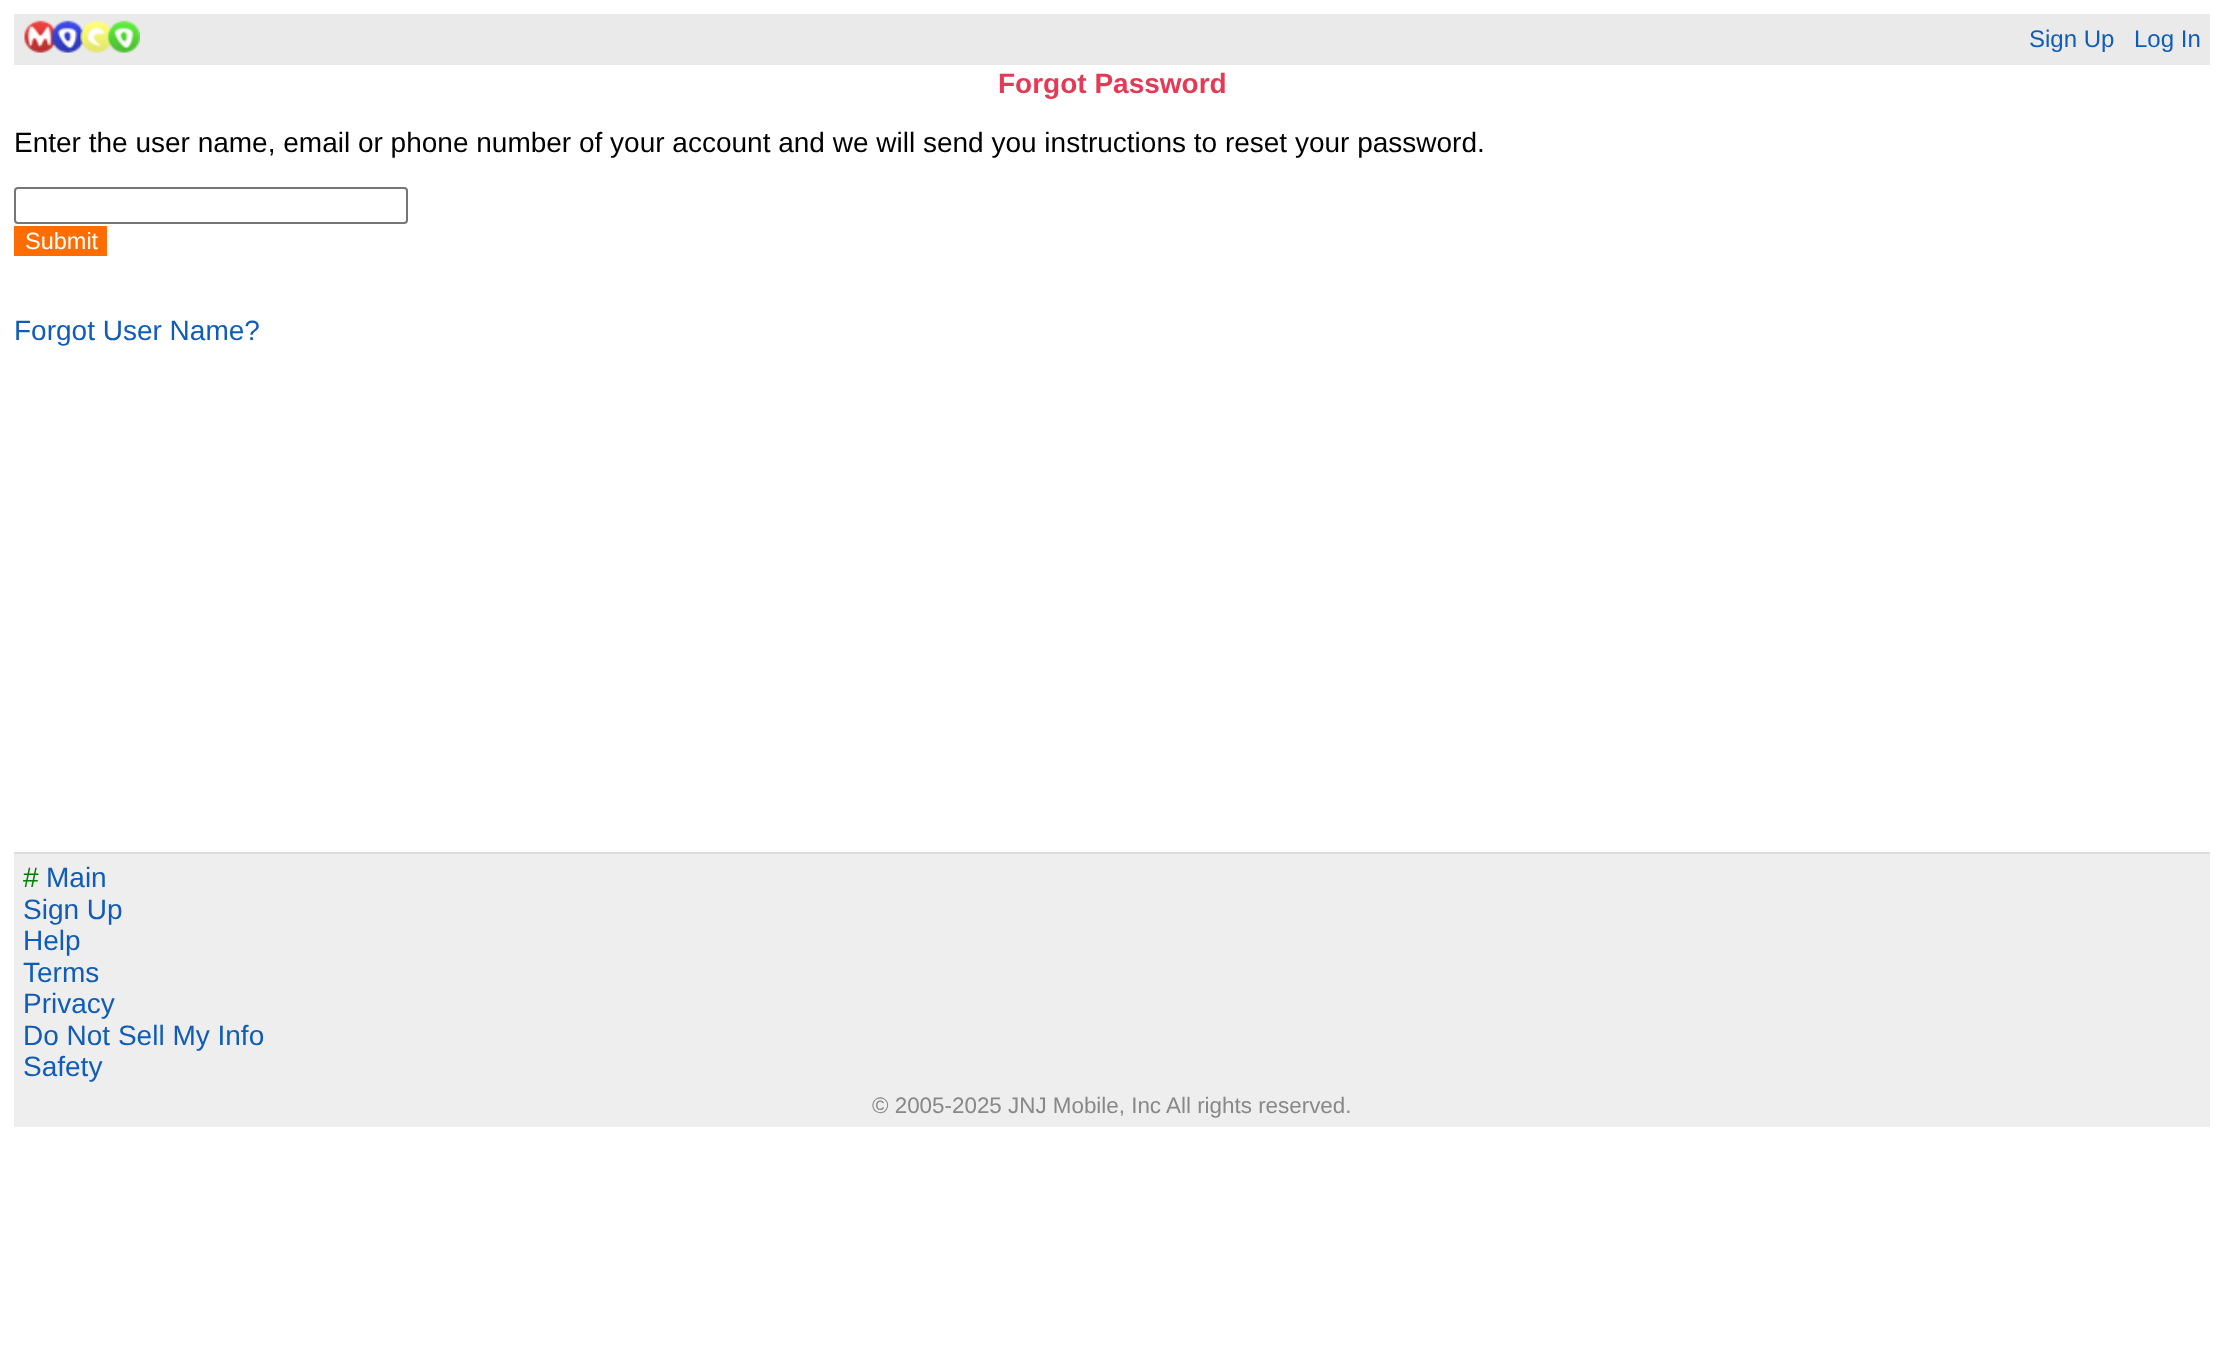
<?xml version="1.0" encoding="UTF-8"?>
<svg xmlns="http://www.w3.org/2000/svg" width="2224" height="1352">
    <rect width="100%" height="100%" fill="#FFFFFF"/>
    <rect x="14" y="14" width="2196" height="51" fill="#EAEAEA"/>
    <image x="24" y="20" width="116" height="33" href="img_01.png"/>
    <text x="2029" y="47" font-family="Liberation Sans" font-size="24" fill="#105CB6">Sign Up</text>
    <text x="2134" y="47" font-family="Liberation Sans" font-size="24" fill="#105CB6">Log In</text>
    <text x="998" y="93" font-family="Liberation Sans" font-size="28" font-weight="700" fill="#E63955">Forgot Password</text>
    <text x="14" y="152" font-family="Liberation Sans" font-size="28" fill="#000000">Enter the user name, email or phone number of your account and we will send you instructions to reset your password.</text>
    <rect x="15" y="188" width="392" height="35" rx="3" fill="none" stroke="#767676" stroke-width="2"/>
    <rect x="14" y="226" width="93" height="30" fill="#FF6C00"/>
    <text x="25" y="249" font-family="Liberation Sans" font-size="23.5" fill="#FFFFFF">Submit</text>
    <text x="14" y="340" font-family="Liberation Sans" font-size="28" fill="#105CB6">Forgot User Name?</text>
    <rect x="14" y="854" width="2196" height="273" fill="#EEEEEE"/>
    <rect x="14" y="852" width="2196" height="2" fill="#DDDDDD"/>
    <text x="23" y="887" font-family="Liberation Sans" font-size="28" fill="#008000">#</text>
    <text x="46" y="887" font-family="Liberation Sans" font-size="28" fill="#105CB6">Main</text>
    <text font-family="Liberation Sans" font-size="28" fill="#105CB6">
        <tspan x="23" y="919">Sign Up</tspan>
        <tspan x="23" y="950">Help</tspan>
        <tspan x="23" y="982">Terms</tspan>
        <tspan x="23" y="1013">Privacy</tspan>
        <tspan x="23" y="1045">Do Not Sell My Info</tspan>
        <tspan x="23" y="1076">Safety</tspan>
    </text>
    <text x="872" y="1113" font-family="Liberation Sans" font-size="22.4" fill="#888888">© 2005-2025 JNJ Mobile, Inc All rights reserved.</text>
</svg>
